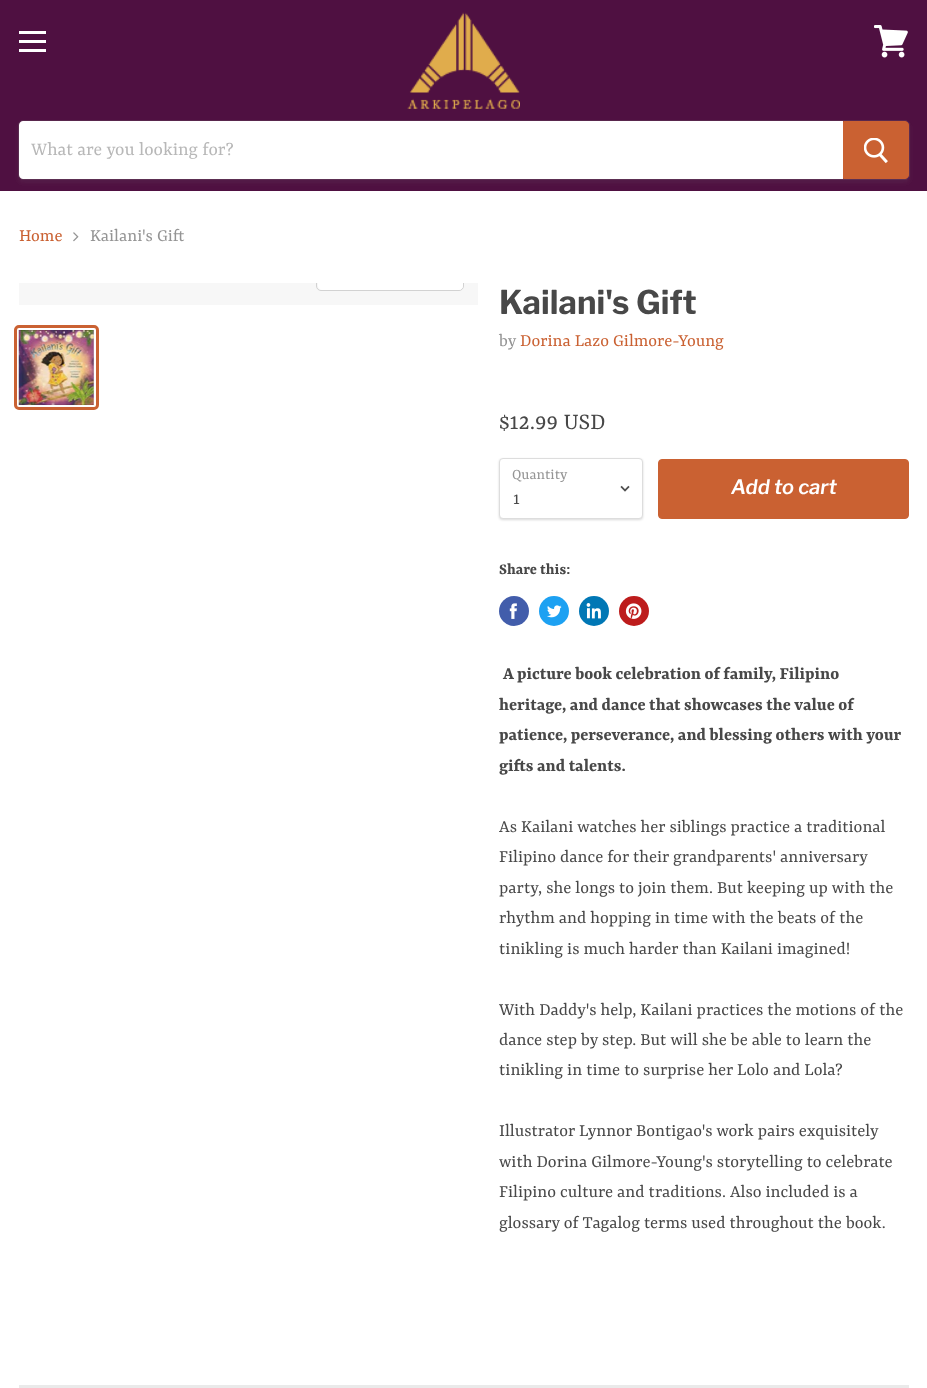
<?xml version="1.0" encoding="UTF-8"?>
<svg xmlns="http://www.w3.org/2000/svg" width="927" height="1388">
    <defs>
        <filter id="blur1" x="-50%" y="-200%" width="200%" height="500%"><feGaussianBlur stdDeviation="2"/></filter>
        <clipPath id="clip1"><rect x="19" y="283" width="459" height="22"/></clipPath>
        <filter id="blur2" x="-50%" y="-200%" width="200%" height="500%"><feGaussianBlur stdDeviation="1"/></filter>
    </defs>
    <rect width="100%" height="100%" fill="#FFFFFF"/>
    <rect x="0" y="0" width="927" height="191" fill="#4F1041"/>
    <rect x="19" y="31" width="27" height="3" fill="#FFFFFF"/>
    <rect x="19" y="40" width="27" height="3" fill="#FFFFFF"/>
    <rect x="19" y="49" width="27" height="3" fill="#FFFFFF"/>
    <image x="874" y="25" width="34" height="33" href="img_01.png"/>
    <image x="407" y="12" width="113" height="97" href="img_02.png"/>
    <rect x="18" y="123" width="892" height="60" rx="5" fill="#7F7F7F" fill-opacity="0.11" filter="url(#blur1)"/>
    <rect x="18.5" y="120.5" width="891" height="59" rx="4.5" fill="none" stroke="#7F7F7F" stroke-opacity="0.2"/>
    <path d="M 23 121 H 843 V 179 H 23 C 21 179 19 177 19 175 V 125 C 19 123 21 121 23 121 Z" fill="#FFFFFF"/>
    <text x="31" y="155" font-family="Yrsa" font-size="20" fill="#B8B8B8">What are you looking for?</text>
    <path d="M 843.5 121.5 H 905 C 907 121.5 908.5 123 908.5 125 V 175 C 908.5 177 907 178.5 905 178.5 H 843.5 Z" fill="#CA6132" stroke="#CA6132"/>
    <image x="864" y="138" width="24" height="26" href="img_03.png"/>
    <text x="19" y="241" font-family="Yrsa" font-size="18.75" fill="#CA6132">Home</text>
    <image x="73" y="232" width="6" height="10" href="img_04.png"/>
    <text x="90" y="241" font-family="Yrsa" font-size="18.75" fill="#949494">Kailani's Gift</text>
    <rect x="19" y="283" width="459" height="22" fill="#F7F7F7"/>
    <g clip-path="url(#clip1)">
        <rect x="316.5" y="254.5" width="147" height="36" rx="4.5" fill="none" stroke="#D2D2D2"/>
    </g>
    <path d="M 318 283 H 463 V 286 C 463 288 461 290 459 290 H 322 C 320 290 318 288 318 286 Z" fill="#FFFFFF" fill-opacity="0.9"/>
    <rect x="15.5" y="326.5" width="82" height="82" rx="3.5" fill="none" stroke="#CA6132" stroke-width="3"/>
    <image x="18" y="330" width="76" height="75" href="img_05.png"/>
    <text x="499" y="314" font-family="Libre Franklin" font-size="32.75" font-weight="700" fill="#484848">Kailani's Gift</text>
    <text x="499" y="346" font-family="Yrsa" font-size="18.75" fill="#949494">by</text>
    <text x="520" y="346" font-family="Yrsa" font-size="18.75" fill="#CA6132">Dorina Lazo Gilmore-Young</text>
    <text x="499" y="429" font-family="Yrsa" font-size="25" fill="#484848">$12.99 USD</text>
    <rect x="499" y="459" width="144" height="61" rx="4" fill="#000000" fill-opacity="0.15" filter="url(#blur2)"/>
    <rect x="499.5" y="458.5" width="143" height="60" rx="3.5" fill="#FFFFFF" stroke="#DDDDDD"/>
    <text x="512" y="479" font-family="Yrsa" font-size="16" fill="#949494">Quantity</text>
    <image x="620" y="485" width="10" height="7" href="img_06.png"/>
    <text x="513" y="504" font-family="Yrsa" font-size="18.75" fill="#484848">1</text>
    <rect x="658.5" y="459.5" width="250" height="59" rx="3.5" fill="#CA6132" stroke="#CA6132"/>
    <text x="731" y="494" font-family="Libre Franklin" font-size="20" font-weight="600" font-style="italic" fill="#FFFFFF">Add to cart</text>
    <text x="499" y="574" font-family="Yrsa" font-size="16.5" font-weight="700" fill="#484848">Share this:</text>
    <circle cx="514" cy="611" r="15" fill="#425DAB"/>
    <image x="509" y="603" width="8" height="16" href="img_07.png"/>
    <circle cx="554" cy="611" r="15" fill="#1DA1F2"/>
    <image x="547" y="605" width="15" height="13" href="img_08.png"/>
    <circle cx="594" cy="611" r="15" fill="#0077B5"/>
    <image x="586" y="603" width="15" height="16" href="img_09.png"/>
    <circle cx="634" cy="611" r="15" fill="#BD1C1C"/>
    <image x="625" y="603" width="17" height="16" href="img_10.png"/>
    <text x="503" y="679" font-family="Yrsa" font-size="18.75" font-weight="700" fill="#484848">A picture book celebration of family, Filipino</text>
    <text font-family="Yrsa" font-size="18.75" font-weight="700" fill="#484848">
        <tspan x="499" y="710">heritage, and dance that showcases the value of</tspan>
        <tspan x="499" y="740">patience, perseverance, and blessing others with your</tspan>
        <tspan x="499" y="771">gifts and talents.</tspan>
    </text>
    <text font-family="Yrsa" font-size="18.75" fill="#484848">
        <tspan x="499" y="832">As Kailani watches her siblings practice a traditional</tspan>
        <tspan x="499" y="862">Filipino dance for their grandparents' anniversary</tspan>
        <tspan x="499" y="893">party, she longs to join them. But keeping up with the</tspan>
        <tspan x="499" y="923">rhythm and hopping in time with the beats of the</tspan>
        <tspan x="499" y="954">tinikling is much harder than Kailani imagined!</tspan>
    </text>
    <text font-family="Yrsa" font-size="18.75" fill="#484848">
        <tspan x="499" y="1015">With Daddy's help, Kailani practices the motions of the</tspan>
        <tspan x="499" y="1045">dance step by step. But will she be able to learn the</tspan>
        <tspan x="499" y="1075">tinikling in time to surprise her Lolo and Lola?</tspan>
    </text>
    <text font-family="Yrsa" font-size="18.75" fill="#484848">
        <tspan x="499" y="1136">Illustrator Lynnor Bontigao's work pairs exquisitely</tspan>
        <tspan x="499" y="1167">with Dorina Gilmore-Young's storytelling to celebrate</tspan>
        <tspan x="499" y="1197">Filipino culture and traditions. Also included is a</tspan>
        <tspan x="499" y="1228">glossary of Tagalog terms used throughout the book.</tspan>
    </text>
    <rect x="19" y="1385" width="890" height="3" fill="#7F7F7F" fill-opacity="0.16"/>
</svg>
